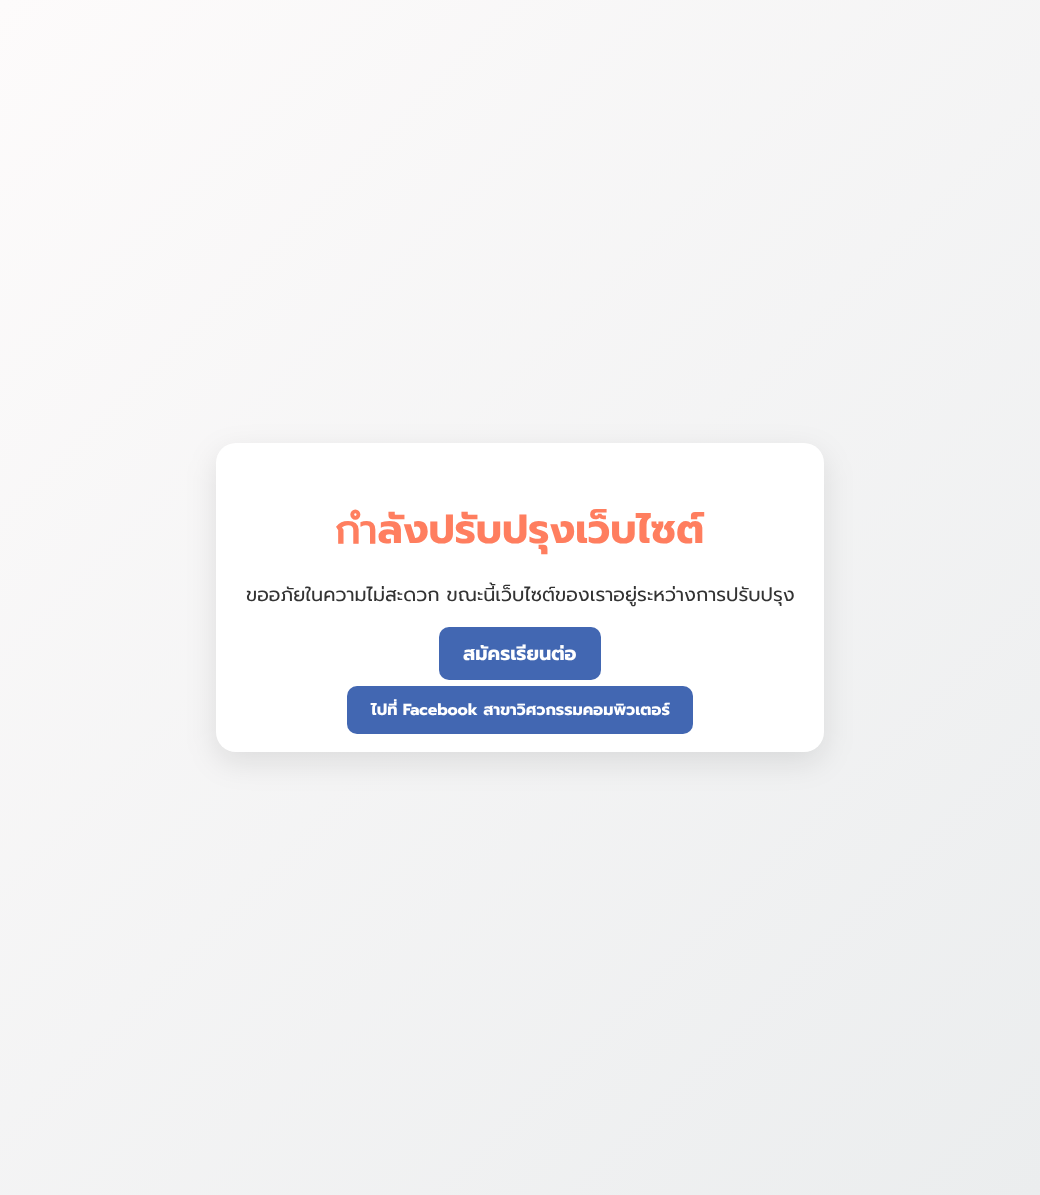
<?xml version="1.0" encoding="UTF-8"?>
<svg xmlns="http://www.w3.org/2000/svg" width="1040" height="1195">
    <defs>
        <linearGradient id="g1" gradientUnits="userSpaceOnUse" x1="-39" y1="39" x2="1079" y2="1156"><stop offset="0" stop-color="#FDFBFB"/><stop offset="1" stop-color="#EBEDEE"/></linearGradient>
        <filter id="blur1" x="-50%" y="-200%" width="200%" height="500%"><feGaussianBlur stdDeviation="15"/></filter>
    </defs>
    <rect width="100%" height="100%" fill="#FFFFFF"/>
    <rect x="0" y="0" width="1040" height="1195" fill="url(#g1)"/>
    <rect x="216" y="453" width="608" height="309" rx="20" fill="#000000" fill-opacity="0.1" filter="url(#blur1)"/>
    <rect x="216" y="443" width="608" height="309" rx="20" fill="#FFFFFF"/>
    <text x="335" y="543" font-family="Prompt" font-size="40" font-weight="700" fill="#FF7E5F">กำลังปรับปรุงเว็บไซต์</text>
    <text x="246" y="601" font-family="Prompt" font-size="19.2" fill="#333333">ขออภัยในความไม่สะดวก ขณะนี้เว็บไซต์ของเราอยู่ระหว่างการปรับปรุง</text>
    <rect x="439" y="627" width="162" height="53" rx="10" fill="#4267B2"/>
    <text x="463" y="660" font-family="Prompt" font-size="19.2" font-weight="700" fill="#FFFFFF">สมัครเรียนต่อ</text>
    <rect x="347" y="686" width="346" height="48" rx="10" fill="#4267B2"/>
    <text x="371" y="715" font-family="Prompt" font-size="16" font-weight="700" fill="#FFFFFF">ไปที่ Facebook สาขาวิศวกรรมคอมพิวเตอร์</text>
</svg>
